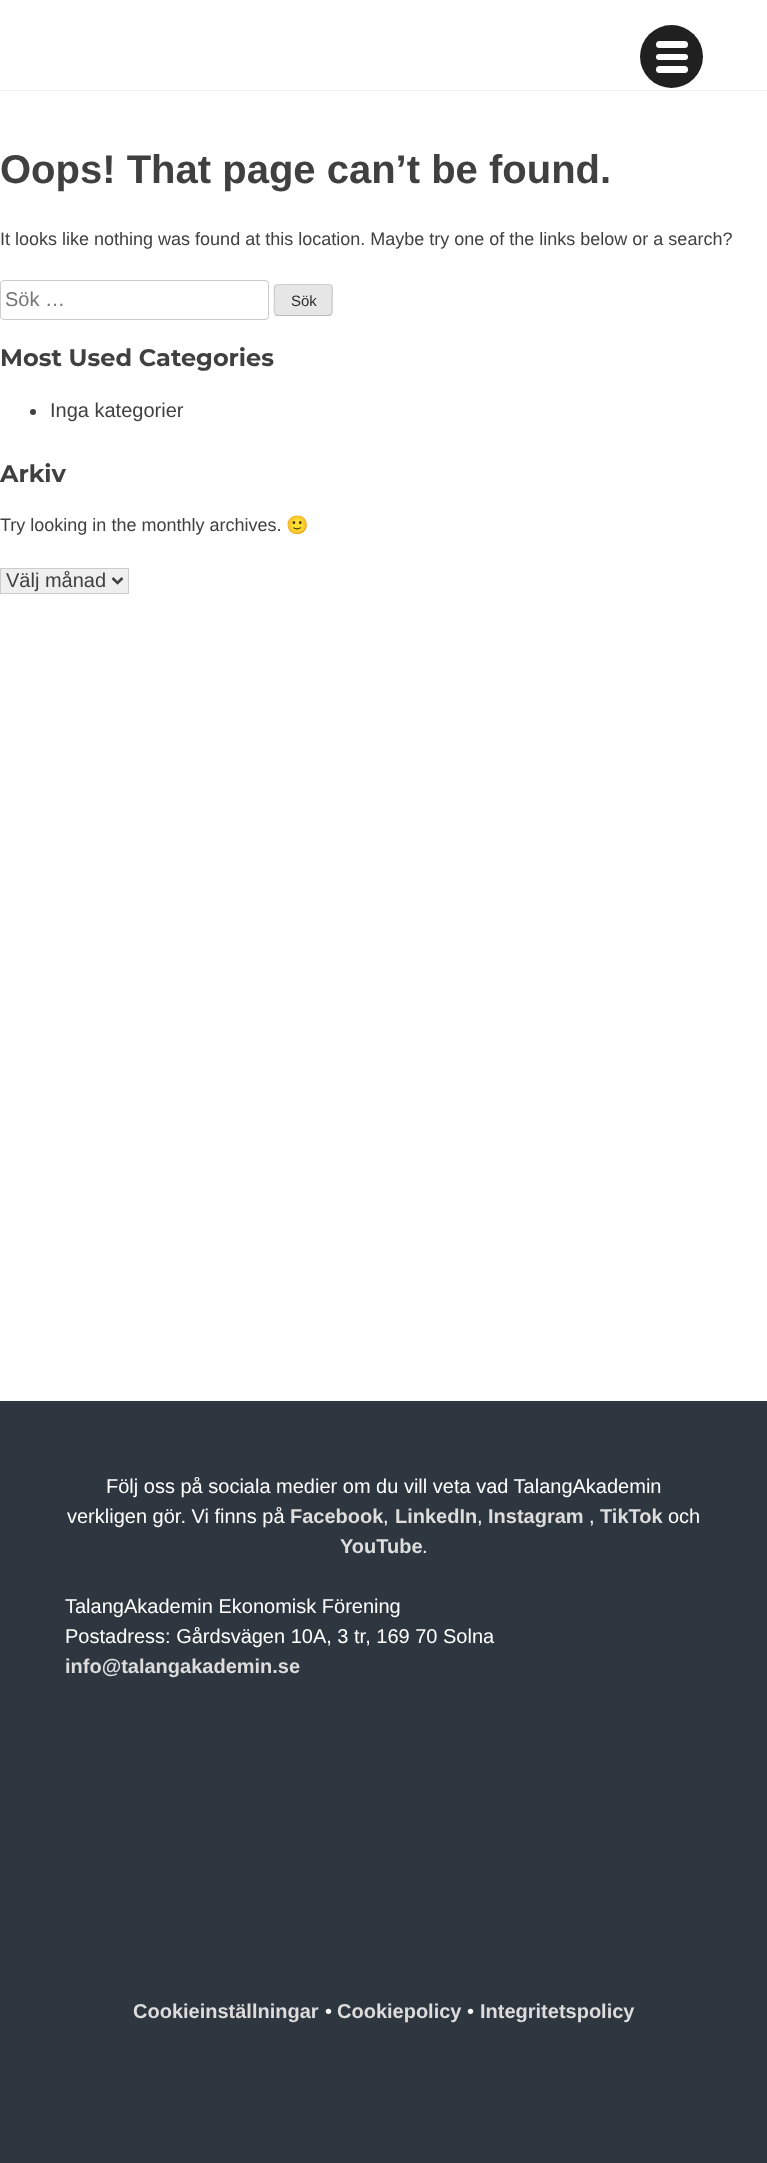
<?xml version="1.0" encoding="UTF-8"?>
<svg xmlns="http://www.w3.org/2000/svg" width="767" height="2163">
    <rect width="100%" height="100%" fill="#FFFFFF"/>
    <circle cx="671.5" cy="56.5" r="31.5" fill="#202020"/>
    <rect x="656" y="66" width="32" height="7" rx="3.5" fill="#FFFFFF"/>
    <rect x="656" y="41" width="32" height="7" rx="3.5" fill="#FFFFFF"/>
    <rect x="656" y="54" width="32" height="6" rx="3" fill="#FFFFFF"/>
    <rect x="0" y="90" width="767" height="1" fill="#EEEEEE"/>
    <text x="0" y="183" font-family="Liberation Sans" font-size="40" font-weight="700" fill="#404040">Oops! That page can’t be found.</text>
    <text x="0" y="245" font-family="Liberation Sans" font-size="18" fill="#404040">It looks like nothing was found at this location. Maybe try one of the links below or a search?</text>
    <rect x="0.5" y="280.5" width="268" height="39" rx="3.5" fill="none" stroke="#CCCCCC"/>
    <text x="5" y="306" font-family="Liberation Sans" font-size="20" fill="#757575">Sök …</text>
    <rect x="274" y="284" width="59" height="32" rx="4" fill="#E6E6E6"/>
    <path d="M 331 314.5 L 329 315.5 H 277 L 275.5 314.5" fill="none" stroke="#BBBBBB" stroke-width="1.2"/>
    <path d="M 275.5 314.5 C 273 312.5 274.5 303 274.5 300 C 274.5 284 271 284.5 286 284.5 H 320 C 335.5 284.5 332 284 332 300 C 332 303 333 312.5 331 314.5" fill="none" stroke="#CCCCCC" stroke-width="1.2"/>
    <text x="291" y="306" font-family="Liberation Sans" font-size="15" fill="#2E2E2E">Sök</text>
    <text x="0" y="366" font-family="Montserrat" font-size="24" font-weight="700" fill="#404040">Most Used Categories</text>
    <circle cx="33" cy="412" r="3" fill="#404040"/>
    <text x="50" y="417" font-family="Liberation Sans" font-size="20" fill="#404040">Inga kategorier</text>
    <text x="0" y="482" font-family="Montserrat" font-size="24" font-weight="700" fill="#404040">Arkiv</text>
    <text x="0" y="531" font-family="Liberation Sans" font-size="18" fill="#404040">Try looking in the monthly archives.</text>
    <text x="286" y="531" font-family="Noto Color Emoji" font-size="18" fill="#404040">🙂</text>
    <rect x="0.5" y="568.5" width="128" height="25" fill="#EFEFEF" stroke="#CCCCCC"/>
    <path d="M 112.5 578 L 117.5 583 L 122.5 578" fill="none" stroke="#404040" stroke-width="2.5"/>
    <text x="6" y="587" font-family="Liberation Sans" font-size="20" fill="#404040">Välj månad</text>
    <rect x="0" y="1401" width="767" height="762" fill="#2E3740"/>
    <text x="106" y="1493" font-family="Liberation Sans" font-size="20" fill="#FFFFFF">Följ oss på sociala medier om du vill veta vad TalangAkademin</text>
    <text x="67" y="1523" font-family="Liberation Sans" font-size="20" fill="#FFFFFF">verkligen gör. Vi finns på</text>
    <text x="290" y="1523" font-family="Liberation Sans" font-size="20" font-weight="700" fill="#DDDDDD">Facebook</text>
    <text x="383" y="1523" font-family="Liberation Sans" font-size="20" fill="#FFFFFF">,</text>
    <text x="395" y="1523" font-family="Liberation Sans" font-size="20" font-weight="700" fill="#DDDDDD">LinkedIn</text>
    <text x="477" y="1523" font-family="Liberation Sans" font-size="20" fill="#FFFFFF">,</text>
    <text x="488" y="1523" font-family="Liberation Sans" font-size="20" font-weight="700" fill="#DDDDDD">Instagram</text>
    <text x="589" y="1523" font-family="Liberation Sans" font-size="20" fill="#FFFFFF">,</text>
    <text x="600" y="1523" font-family="Liberation Sans" font-size="20" font-weight="700" fill="#DDDDDD">TikTok</text>
    <text x="668" y="1523" font-family="Liberation Sans" font-size="20" fill="#FFFFFF">och</text>
    <text x="340" y="1553" font-family="Liberation Sans" font-size="20" font-weight="700" fill="#DDDDDD">YouTube</text>
    <text x="422" y="1553" font-family="Liberation Sans" font-size="20" fill="#FFFFFF">.</text>
    <text font-family="Liberation Sans" font-size="20" fill="#FFFFFF">
        <tspan x="65" y="1613">TalangAkademin Ekonomisk Förening</tspan>
        <tspan x="65" y="1643">Postadress: Gårdsvägen 10A, 3 tr, 169 70 Solna</tspan>
    </text>
    <text x="65" y="1673" font-family="Liberation Sans" font-size="20" font-weight="700" fill="#DDDDDD">info@talangakademin.se</text>
    <text x="133" y="2018" font-family="Liberation Sans" font-size="20" font-weight="700" fill="#DDDDDD">Cookieinställningar</text>
    <text x="325" y="2018" font-family="Liberation Sans" font-size="20" fill="#FFFFFF">•</text>
    <text x="337" y="2018" font-family="Liberation Sans" font-size="20" font-weight="700" fill="#DDDDDD">Cookiepolicy</text>
    <text x="467" y="2018" font-family="Liberation Sans" font-size="20" fill="#FFFFFF">•</text>
    <text x="480" y="2018" font-family="Liberation Sans" font-size="20" font-weight="700" fill="#DDDDDD">Integritetspolicy</text>
</svg>
